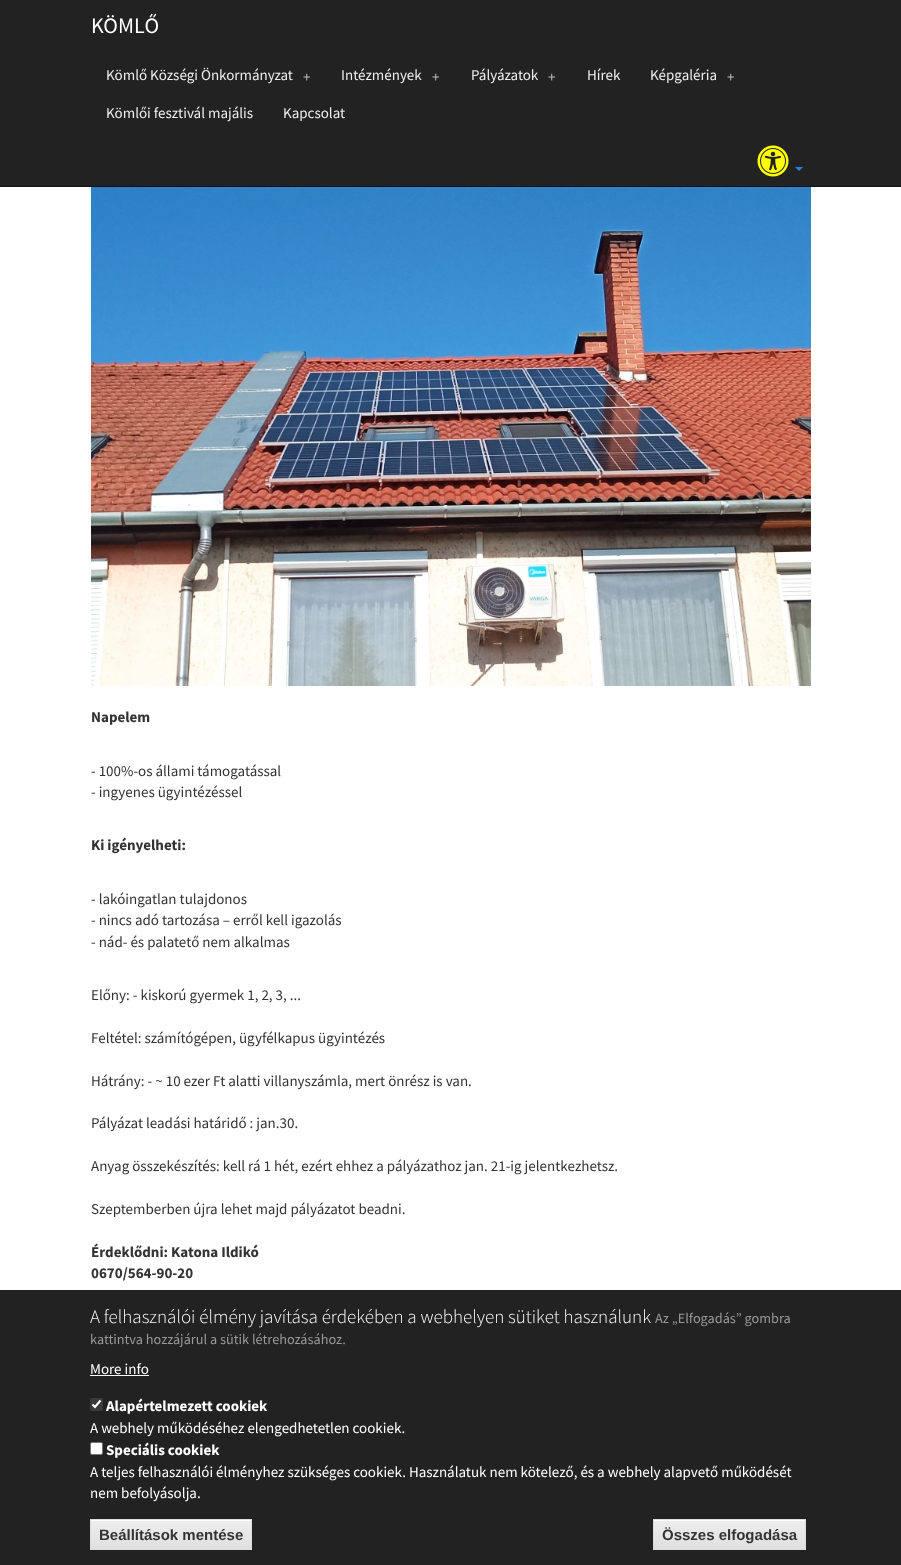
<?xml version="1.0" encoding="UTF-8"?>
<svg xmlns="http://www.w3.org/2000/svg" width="901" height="1565">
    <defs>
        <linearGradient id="g1" gradientUnits="userSpaceOnUse" x1="171" y1="1520" x2="171" y2="1549"><stop offset="0.05" stop-color="#EDEDED"/><stop offset="1" stop-color="#DFDFDF"/></linearGradient>
        <linearGradient id="g2" gradientUnits="userSpaceOnUse" x1="730" y1="1520" x2="730" y2="1549"><stop offset="0.05" stop-color="#EDEDED"/><stop offset="1" stop-color="#DFDFDF"/></linearGradient>
    </defs>
    <rect width="100%" height="100%" fill="#FFFFFF"/>
    <rect x="0" y="0" width="901" height="186" fill="#222222"/>
    <rect x="0" y="186" width="901" height="1" fill="#121212"/>
    <text x="91" y="33" font-family="Source Sans Pro" font-size="22" fill="#FFFFFF">KÖMLŐ</text>
    <text x="106" y="80" font-family="Source Sans Pro" font-size="15" fill="#EEEEEE">Kömlő Községi Önkormányzat</text>
    <text x="303" y="82" font-family="Source Sans Pro" font-size="15" fill="#BBBBBB">+</text>
    <text x="341" y="80" font-family="Source Sans Pro" font-size="15" fill="#EEEEEE">Intézmények</text>
    <text x="432" y="82" font-family="Source Sans Pro" font-size="15" fill="#BBBBBB">+</text>
    <text x="471" y="80" font-family="Source Sans Pro" font-size="15" fill="#EEEEEE">Pályázatok</text>
    <text x="548" y="82" font-family="Source Sans Pro" font-size="15" fill="#BBBBBB">+</text>
    <text x="587" y="80" font-family="Source Sans Pro" font-size="15" fill="#EEEEEE">Hírek</text>
    <text x="650" y="80" font-family="Source Sans Pro" font-size="15" fill="#EEEEEE">Képgaléria</text>
    <text x="727" y="82" font-family="Source Sans Pro" font-size="15" fill="#BBBBBB">+</text>
    <text x="106" y="118" font-family="Source Sans Pro" font-size="15" fill="#EEEEEE">Kömlői fesztivál majális</text>
    <text x="283" y="118" font-family="Source Sans Pro" font-size="15" fill="#EEEEEE">Kapcsolat</text>
    <image x="757" y="145" width="32" height="32" href="img_01.png"/>
    <path d="M 795 167 H 803 L 799 171 Z" fill="#2780E3"/>
    <image x="91" y="187" width="720" height="499" href="img_02.png"/>
    <text x="91" y="722" font-family="Source Sans Pro" font-size="15" font-weight="700" fill="#333333">Napelem</text>
    <text font-family="Source Sans Pro" font-size="15" fill="#333333">
        <tspan x="91" y="776">- 100%-os állami támogatással</tspan>
        <tspan x="91" y="797">- ingyenes ügyintézéssel</tspan>
    </text>
    <text x="91" y="850" font-family="Source Sans Pro" font-size="15" font-weight="700" fill="#333333">Ki igényelheti:</text>
    <text font-family="Source Sans Pro" font-size="15" fill="#333333">
        <tspan x="91" y="904">- lakóingatlan tulajdonos</tspan>
        <tspan x="91" y="925">- nincs adó tartozása – erről kell igazolás</tspan>
        <tspan x="91" y="947">- nád- és palatető nem alkalmas</tspan>
    </text>
    <text x="91" y="1000" font-family="Source Sans Pro" font-size="15" fill="#333333">Előny: - kiskorú gyermek 1, 2, 3, ...</text>
    <text x="91" y="1043" font-family="Source Sans Pro" font-size="15" fill="#333333">Feltétel: számítógépen, ügyfélkapus ügyintézés</text>
    <text x="91" y="1086" font-family="Source Sans Pro" font-size="15" fill="#333333">Hátrány: - ~ 10 ezer Ft alatti villanyszámla, mert önrész is van.</text>
    <text x="91" y="1128" font-family="Source Sans Pro" font-size="15" fill="#333333">Pályázat leadási határidő : jan.30.</text>
    <text x="91" y="1171" font-family="Source Sans Pro" font-size="15" fill="#333333">Anyag összekészítés: kell rá 1 hét, ezért ehhez a pályázathoz jan. 21-ig jelentkezhetsz.</text>
    <text x="91" y="1214" font-family="Source Sans Pro" font-size="15" fill="#333333">Szeptemberben újra lehet majd pályázatot beadni.</text>
    <text font-family="Source Sans Pro" font-size="15" font-weight="700" fill="#333333">
        <tspan x="91" y="1257">Érdeklődni: Katona Ildikó</tspan>
        <tspan x="91" y="1278">0670/564-90-20</tspan>
    </text>
    <rect x="0" y="1290" width="901" height="275" fill="#222222"/>
    <text x="90" y="1323" font-family="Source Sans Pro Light" font-size="19" font-weight="300" fill="#FFFFFF">A felhasználói élmény javítása érdekében a webhelyen sütiket használunk</text>
    <text x="655" y="1323" font-family="Source Sans Pro" font-size="14.25" fill="#999999">Az „Elfogadás” gombra</text>
    <text x="90" y="1344" font-family="Source Sans Pro" font-size="14.25" fill="#999999">kattintva hozzájárul a sütik létrehozásához.</text>
    <text x="90" y="1374" font-family="Source Sans Pro" font-size="15" fill="#FFFFFF">More info</text>
    <rect x="90" y="1375" width="59" height="1" fill="#FFFFFF"/>
    <rect x="90" y="1398" width="13" height="13" rx="2" fill="#3B3B3B"/>
    <path d="M 92.5 1404.5 L 95 1407 L 100.5 1400.5" fill="none" stroke="#FFFFFF" stroke-width="2.1"/>
    <text x="106" y="1411" font-family="Source Sans Pro" font-size="15" font-weight="700" fill="#FFFFFF">Alapértelmezett cookiek</text>
    <text x="90" y="1433" font-family="Source Sans Pro" font-size="15" fill="#FFFFFF">A webhely működéséhez elengedhetetlen cookiek.</text>
    <rect x="90.5" y="1442.5" width="12" height="12" rx="1.5" fill="#FFFFFF" stroke="#767676"/>
    <text x="106" y="1455" font-family="Source Sans Pro" font-size="15" font-weight="700" fill="#FFFFFF">Speciális cookiek</text>
    <text font-family="Source Sans Pro" font-size="15" fill="#FFFFFF">
        <tspan x="90" y="1477">A teljes felhasználói élményhez szükséges cookiek. Használatuk nem kötelező, és a webhely alapvető működését</tspan>
        <tspan x="90" y="1498">nem befolyásolja.</tspan>
    </text>
    <rect x="91" y="1521" width="160" height="28" fill="url(#g1)"/>
    <rect x="91" y="1520" width="160" height="1" fill="#FFFFFF"/>
    <rect x="90.5" y="1519.5" width="161" height="30" fill="none" stroke="#DCDCDC"/>
    <text x="99" y="1540" font-family="Liberation Sans" font-size="15" font-weight="700" fill="#333333">Beállítások mentése</text>
    <rect x="654" y="1521" width="151" height="28" fill="url(#g2)"/>
    <rect x="654" y="1520" width="151" height="1" fill="#FFFFFF"/>
    <rect x="653.5" y="1519.5" width="152" height="30" fill="none" stroke="#DCDCDC"/>
    <text x="662" y="1540" font-family="Liberation Sans" font-size="15" font-weight="700" fill="#333333">Összes elfogadása</text>
</svg>
